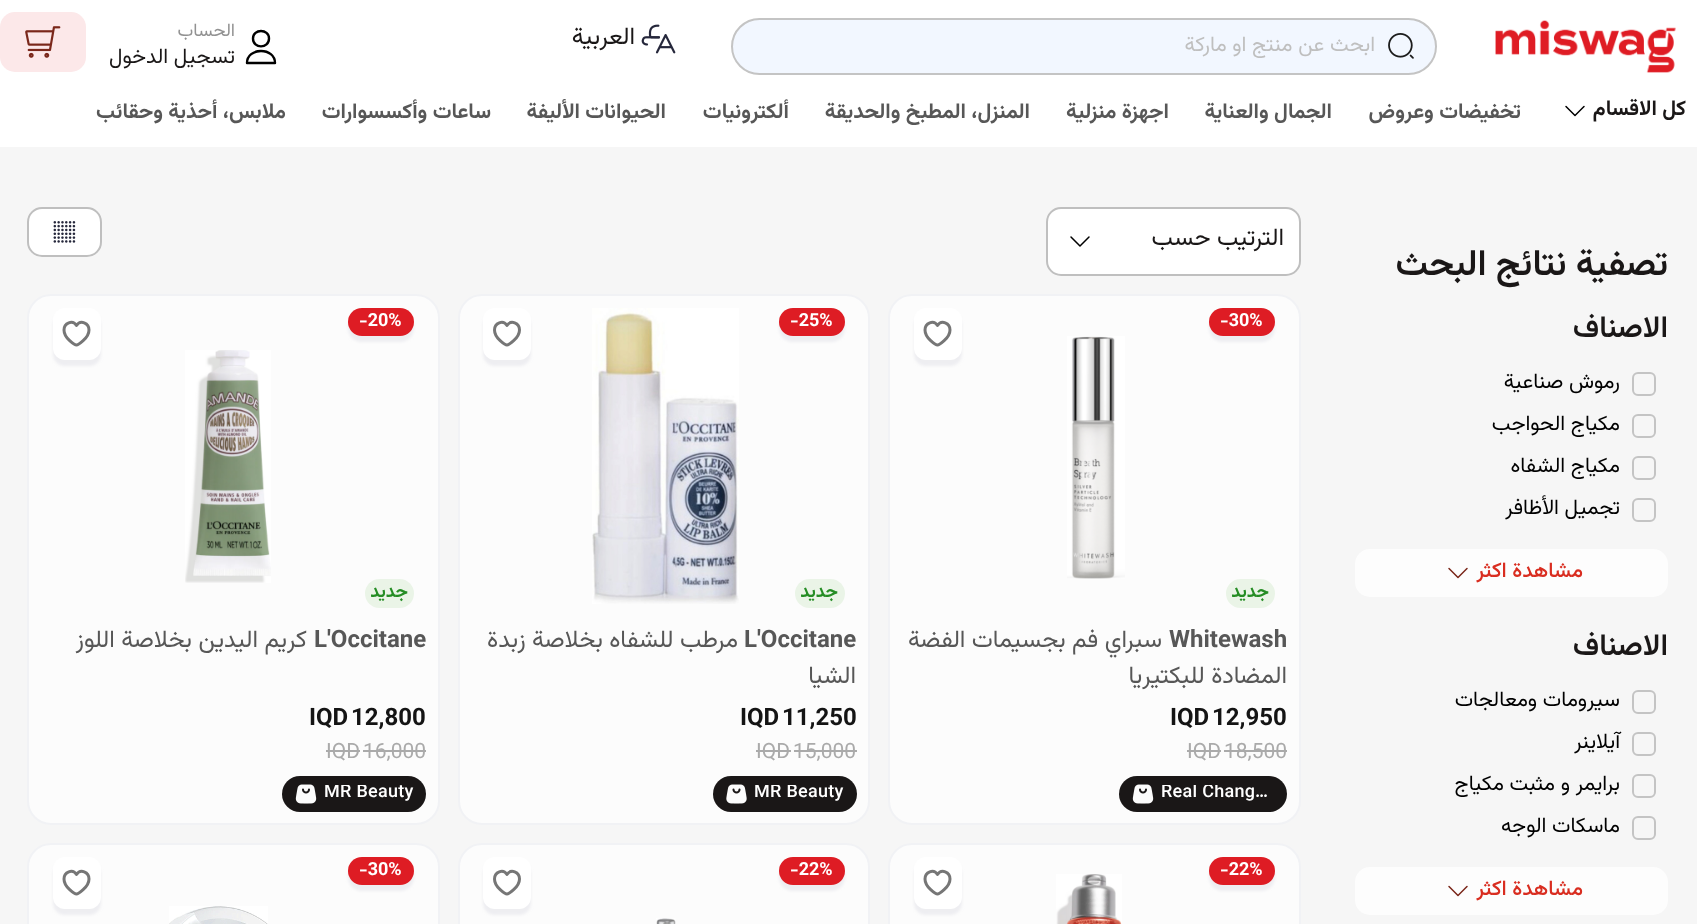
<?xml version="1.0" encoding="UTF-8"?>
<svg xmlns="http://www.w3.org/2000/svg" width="1697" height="924">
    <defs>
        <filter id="blur1" x="-50%" y="-200%" width="200%" height="500%"><feGaussianBlur stdDeviation="1.5"/></filter>
        <clipPath id="clip1"><rect x="1161" y="785" width="114" height="18"/></clipPath>
        <clipPath id="clip2"><rect x="755" y="785" width="90" height="18"/></clipPath>
        <clipPath id="clip3"><rect x="324" y="785" width="90" height="18"/></clipPath>
    </defs>
    <rect width="100%" height="100%" fill="#F6F6F6"/>
    <rect x="0" y="0" width="1697" height="147" fill="#FFFFFF"/>
    <image x="1495" y="20" width="181" height="53" href="img_01.png"/>
    <rect x="732" y="19" width="704" height="55" rx="27.5" fill="#F2F7FF" stroke="#C4C4C4" stroke-width="2"/>
    <image x="1388" y="33" width="26" height="26" href="img_02.png"/>
    <text x="1375" y="51" font-family="Vazirmatn" font-size="21" direction="rtl" fill="#BFBFBF">ابحث عن منتج او ماركة</text>
    <image x="641" y="24" width="35" height="30" href="img_03.png"/>
    <text x="635" y="44" font-family="Vazirmatn" font-size="24" direction="rtl" fill="#1A1717">العربية</text>
    <path d="M 269 38.5 C 269 49 253 49 253 38.5 C 253 28.5 269 28.5 269 38.5 Z M 261 51 C 253.5 51 247 55.5 247 63 H 275 C 275 55.5 268.5 51 261 51 Z" fill="none" stroke="#000000" stroke-width="2.4" stroke-linecap="round" stroke-linejoin="round"/>
    <text x="235" y="36" font-family="Vazirmatn" font-size="18" direction="rtl" fill="#929292">الحساب</text>
    <text x="235" y="63" font-family="Vazirmatn" font-size="21" direction="rtl" fill="#1A1717">تسجيل الدخول</text>
    <rect x="0" y="12" width="86" height="60" rx="15" fill="#FCE8E9"/>
    <image x="25" y="26" width="36" height="32" href="img_04.png"/>
    <text x="1686" y="115" font-family="Vazirmatn" font-size="21" font-weight="700" direction="rtl" fill="#1A1717">كل الاقسام</text>
    <path d="M 1566 106.5 L 1575 115.5 L 1584 106.5" fill="none" stroke="#000000" stroke-width="1.5" stroke-linecap="round" stroke-linejoin="round"/>
    <text x="1521" y="118" font-family="Vazirmatn" font-size="21" font-weight="700" direction="rtl" fill="#575757">تخفيضات وعروض</text>
    <text x="1332" y="118" font-family="Vazirmatn" font-size="21" font-weight="700" direction="rtl" fill="#575757">الجمال والعناية</text>
    <text x="1169" y="118" font-family="Vazirmatn" font-size="21" font-weight="700" direction="rtl" fill="#575757">اجهزة منزلية</text>
    <text x="1030" y="118" font-family="Vazirmatn" font-size="21" font-weight="700" direction="rtl" fill="#575757">المنزل، المطبخ والحديقة</text>
    <text x="789" y="118" font-family="Vazirmatn" font-size="21" font-weight="700" direction="rtl" fill="#575757">ألكترونيات</text>
    <text x="666" y="118" font-family="Vazirmatn" font-size="21" font-weight="700" direction="rtl" fill="#575757">الحيوانات الأليفة</text>
    <text x="491" y="118" font-family="Vazirmatn" font-size="21" font-weight="700" direction="rtl" fill="#575757">ساعات وأكسسوارات</text>
    <text x="286" y="118" font-family="Vazirmatn" font-size="21" font-weight="700" direction="rtl" fill="#575757">ملابس، أحذية وحقائب</text>
    <text x="1668" y="275" font-family="Vazirmatn" font-size="36" font-weight="600" direction="rtl" fill="#1A1717">تصفية نتائج البحث</text>
    <text x="1668" y="337" font-family="Vazirmatn" font-size="30" font-weight="600" direction="rtl" fill="#1A1717">الاصناف</text>
    <rect x="1633" y="373" width="22" height="22" rx="5" fill="none" stroke="#C4C4C4" stroke-width="2"/>
    <text x="1620" y="388" font-family="Vazirmatn" font-size="21" direction="rtl" fill="#000000">رموش صناعية</text>
    <rect x="1633" y="415" width="22" height="22" rx="5" fill="none" stroke="#C4C4C4" stroke-width="2"/>
    <text x="1620" y="430" font-family="Vazirmatn" font-size="21" direction="rtl" fill="#000000">مكياج الحواجب</text>
    <rect x="1633" y="457" width="22" height="22" rx="5" fill="none" stroke="#C4C4C4" stroke-width="2"/>
    <text x="1620" y="472" font-family="Vazirmatn" font-size="21" direction="rtl" fill="#000000">مكياج الشفاه</text>
    <rect x="1633" y="499" width="22" height="22" rx="5" fill="none" stroke="#C4C4C4" stroke-width="2"/>
    <text x="1620" y="514" font-family="Vazirmatn" font-size="21" direction="rtl" fill="#000000">تجميل الأظافر</text>
    <rect x="1355" y="549" width="313" height="48" rx="15" fill="#FDFDFD"/>
    <text x="1583" y="577" font-family="Vazirmatn" font-size="21" font-weight="500" direction="rtl" fill="#D92D20">مشاهدة اكثر</text>
    <path d="M 1449 568.5 L 1458 577.5 L 1467 568.5" fill="none" stroke="#7A271A" stroke-width="1.5" stroke-linecap="round" stroke-linejoin="round"/>
    <text x="1668" y="655" font-family="Vazirmatn" font-size="30" font-weight="600" direction="rtl" fill="#1A1717">الاصناف</text>
    <rect x="1633" y="691" width="22" height="22" rx="5" fill="none" stroke="#C4C4C4" stroke-width="2"/>
    <text x="1620" y="706" font-family="Vazirmatn" font-size="21" direction="rtl" fill="#000000">سيرومات ومعالجات</text>
    <rect x="1633" y="733" width="22" height="22" rx="5" fill="none" stroke="#C4C4C4" stroke-width="2"/>
    <text x="1620" y="748" font-family="Vazirmatn" font-size="21" direction="rtl" fill="#000000">آيلاينر</text>
    <rect x="1633" y="775" width="22" height="22" rx="5" fill="none" stroke="#C4C4C4" stroke-width="2"/>
    <text x="1620" y="790" font-family="Vazirmatn" font-size="21" direction="rtl" fill="#000000">برايمر و مثبت مكياج</text>
    <rect x="1633" y="817" width="22" height="22" rx="5" fill="none" stroke="#C4C4C4" stroke-width="2"/>
    <text x="1620" y="832" font-family="Vazirmatn" font-size="21" direction="rtl" fill="#000000">ماسكات الوجه</text>
    <rect x="1355" y="867" width="313" height="48" rx="15" fill="#FDFDFD"/>
    <text x="1583" y="895" font-family="Vazirmatn" font-size="21" font-weight="500" direction="rtl" fill="#D92D20">مشاهدة اكثر</text>
    <path d="M 1449 886.5 L 1458 895.5 L 1467 886.5" fill="none" stroke="#7A271A" stroke-width="1.5" stroke-linecap="round" stroke-linejoin="round"/>
    <rect x="1047" y="208" width="253" height="67" rx="14" fill="#FFFFFF" stroke="#BFBFBF" stroke-width="2"/>
    <text x="1284" y="245" font-family="Vazirmatn" font-size="24" direction="rtl" fill="#1A1717">الترتيب حسب</text>
    <path d="M 1071 237 L 1080 246 L 1089 237" fill="none" stroke="#000000" stroke-width="1.5" stroke-linecap="round" stroke-linejoin="round"/>
    <rect x="28" y="208" width="73" height="48" rx="14" fill="#FFFFFF" stroke="#BFBFBF" stroke-width="2"/>
    <image x="53" y="221" width="23" height="22" href="img_05.png"/>
    <rect x="889" y="295" width="411" height="529" rx="23" fill="#FCFCFC" stroke="#F1F2F5" stroke-width="2"/>
    <rect x="1209" y="314" width="66" height="28" rx="14" fill="#DFDFE8" fill-opacity="0.5" filter="url(#blur1)"/>
    <rect x="1209" y="308" width="66" height="28" rx="14" fill="#DE1C24"/>
    <text x="1220" y="326" font-family="Vazirmatn" font-size="18" font-weight="700" fill="#FFFFFF">-30%</text>
    <rect x="1226" y="579" width="49" height="29" rx="14.5" fill="#EAF4E7"/>
    <text x="1269" y="597" font-family="Vazirmatn" font-size="18" font-weight="700" direction="rtl" fill="#258D24">جديد</text>
    <image x="1067" y="336" width="58" height="243" href="img_06.png"/>
    <rect x="914" y="314" width="48" height="52" rx="12" fill="#DFDFE8" fill-opacity="0.5" filter="url(#blur1)"/>
    <rect x="914" y="308" width="48" height="52" rx="12" fill="#FFFFFF"/>
    <path d="M 937.5 345 C 938.5 345 950 338.5 950 330 C 950 323 941.5 319.5 937.5 325.5 C 933.5 319.5 925 323 925 330 C 925 338.5 936 345 937.5 345 Z" fill="none" stroke="#767676" stroke-width="3" stroke-linecap="round" stroke-linejoin="round"/>
    <text x="1169" y="647" font-family="Vazirmatn" font-size="24" font-weight="700" fill="#575757">Whitewash</text>
    <text x="1162" y="647" font-family="Vazirmatn" font-size="24" direction="rtl" fill="#575757">سبراي فم بجسيمات الفضة</text>
    <text x="1287" y="683" font-family="Vazirmatn" font-size="24" direction="rtl" fill="#575757">المضادة للبكتيريا</text>
    <text x="1212" y="725" font-family="Vazirmatn" font-size="24" font-weight="700" fill="#141414">12,950</text>
    <text x="1170" y="725" font-family="Vazirmatn" font-size="24" font-weight="700" fill="#141414">IQD</text>
    <text x="1224" y="758" font-family="Vazirmatn" font-size="21" fill="#AAAAAA">18,500</text>
    <rect x="1224" y="750" width="63" height="2" fill="#AAAAAA"/>
    <text x="1187" y="758" font-family="Vazirmatn" font-size="21" fill="#AAAAAA">IQD</text>
    <rect x="1187" y="750" width="34" height="2" fill="#AAAAAA"/>
    <rect x="1119" y="776" width="168" height="36" rx="18" fill="#1A1717"/>
    <g clip-path="url(#clip1)">
        <text x="1161" y="797" font-family="Vazirmatn" font-size="18" font-weight="500" letter-spacing="0.25" fill="#FFFFFF">Real Chang…</text>
    </g>
    <image x="1132" y="784" width="22" height="20" href="img_07.png"/>
    <rect x="459" y="295" width="410" height="529" rx="23" fill="#FCFCFC" stroke="#F1F2F5" stroke-width="2"/>
    <rect x="779" y="314" width="66" height="28" rx="14" fill="#DFDFE8" fill-opacity="0.5" filter="url(#blur1)"/>
    <rect x="779" y="308" width="66" height="28" rx="14" fill="#DE1C24"/>
    <text x="790" y="326" font-family="Vazirmatn" font-size="18" font-weight="700" fill="#FFFFFF">-25%</text>
    <rect x="795" y="579" width="50" height="29" rx="14.5" fill="#EAF4E7"/>
    <text x="838" y="597" font-family="Vazirmatn" font-size="18" font-weight="700" direction="rtl" fill="#258D24">جديد</text>
    <image x="592" y="308" width="147" height="296" href="img_08.png"/>
    <rect x="483" y="314" width="48" height="52" rx="12" fill="#DFDFE8" fill-opacity="0.5" filter="url(#blur1)"/>
    <rect x="483" y="308" width="48" height="52" rx="12" fill="#FFFFFF"/>
    <path d="M 507 345 C 508 345 519.5 338.5 519.5 330 C 519.5 323 511 319.5 507 325.5 C 503 319.5 494.5 323 494.5 330 C 494.5 338.5 505.5 345 507 345 Z" fill="none" stroke="#767676" stroke-width="3" stroke-linecap="round" stroke-linejoin="round"/>
    <text x="744" y="647" font-family="Vazirmatn" font-size="24" font-weight="700" fill="#575757">L'Occitane</text>
    <text x="738" y="647" font-family="Vazirmatn" font-size="24" direction="rtl" fill="#575757">مرطب للشفاه بخلاصة زبدة</text>
    <text x="856" y="683" font-family="Vazirmatn" font-size="24" direction="rtl" fill="#575757">الشيا</text>
    <text x="782" y="725" font-family="Vazirmatn" font-size="24" font-weight="700" fill="#141414">11,250</text>
    <text x="740" y="725" font-family="Vazirmatn" font-size="24" font-weight="700" fill="#141414">IQD</text>
    <text x="793" y="758" font-family="Vazirmatn" font-size="21" fill="#AAAAAA">15,000</text>
    <rect x="794" y="750" width="63" height="2" fill="#AAAAAA"/>
    <text x="756" y="758" font-family="Vazirmatn" font-size="21" fill="#AAAAAA">IQD</text>
    <rect x="756" y="750" width="35" height="2" fill="#AAAAAA"/>
    <rect x="713" y="776" width="144" height="36" rx="18" fill="#1A1717"/>
    <g clip-path="url(#clip2)">
        <text x="754" y="797" font-family="Vazirmatn" font-size="18" font-weight="500" letter-spacing="0.25" fill="#FFFFFF">MR Beauty</text>
    </g>
    <image x="726" y="784" width="21" height="20" href="img_09.png"/>
    <rect x="28" y="295" width="411" height="529" rx="23" fill="#FCFCFC" stroke="#F1F2F5" stroke-width="2"/>
    <rect x="348" y="314" width="66" height="28" rx="14" fill="#DFDFE8" fill-opacity="0.5" filter="url(#blur1)"/>
    <rect x="348" y="308" width="66" height="28" rx="14" fill="#DE1C24"/>
    <text x="359" y="326" font-family="Vazirmatn" font-size="18" font-weight="700" fill="#FFFFFF">-20%</text>
    <rect x="365" y="579" width="49" height="29" rx="14.5" fill="#EAF4E7"/>
    <text x="408" y="597" font-family="Vazirmatn" font-size="18" font-weight="700" direction="rtl" fill="#258D24">جديد</text>
    <image x="185" y="350" width="86" height="233" href="img_10.png"/>
    <rect x="53" y="314" width="48" height="52" rx="12" fill="#DFDFE8" fill-opacity="0.5" filter="url(#blur1)"/>
    <rect x="53" y="308" width="48" height="52" rx="12" fill="#FFFFFF"/>
    <path d="M 76.5 345 C 77.5 345 89 338.5 89 330 C 89 323 80.5 319.5 76.5 325.5 C 72.5 319.5 64 323 64 330 C 64 338.5 75 345 76.5 345 Z" fill="none" stroke="#767676" stroke-width="3" stroke-linecap="round" stroke-linejoin="round"/>
    <text x="314" y="647" font-family="Vazirmatn" font-size="24" font-weight="700" fill="#575757">L'Occitane</text>
    <text x="307" y="647" font-family="Vazirmatn" font-size="24" direction="rtl" fill="#575757">كريم اليدين بخلاصة اللوز</text>
    <text x="351" y="725" font-family="Vazirmatn" font-size="24" font-weight="700" fill="#141414">12,800</text>
    <text x="309" y="725" font-family="Vazirmatn" font-size="24" font-weight="700" fill="#141414">IQD</text>
    <text x="363" y="758" font-family="Vazirmatn" font-size="21" fill="#AAAAAA">16,000</text>
    <rect x="363" y="750" width="63" height="2" fill="#AAAAAA"/>
    <text x="326" y="758" font-family="Vazirmatn" font-size="21" fill="#AAAAAA">IQD</text>
    <rect x="326" y="750" width="34" height="2" fill="#AAAAAA"/>
    <rect x="282" y="776" width="144" height="36" rx="18" fill="#1A1717"/>
    <g clip-path="url(#clip3)">
        <text x="324" y="797" font-family="Vazirmatn" font-size="18" font-weight="500" letter-spacing="0.25" fill="#FFFFFF">MR Beauty</text>
    </g>
    <image x="295" y="784" width="22" height="20" href="img_07.png"/>
    <rect x="889" y="844" width="411" height="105" rx="23" fill="#FCFCFC" stroke="#F1F2F5" stroke-width="2"/>
    <rect x="1209" y="863" width="66" height="28" rx="14" fill="#DFDFE8" fill-opacity="0.5" filter="url(#blur1)"/>
    <rect x="1209" y="857" width="66" height="28" rx="14" fill="#DE1C24"/>
    <text x="1220" y="875" font-family="Vazirmatn" font-size="18" font-weight="700" fill="#FFFFFF">-22%</text>
    <rect x="914" y="863" width="48" height="52" rx="12" fill="#DFDFE8" fill-opacity="0.5" filter="url(#blur1)"/>
    <rect x="914" y="857" width="48" height="52" rx="12" fill="#FFFFFF"/>
    <path d="M 937.5 894 C 938.5 894 950 887.5 950 879 C 950 872 941.5 868.5 937.5 874.5 C 933.5 868.5 925 872 925 879 C 925 887.5 936 894 937.5 894 Z" fill="none" stroke="#767676" stroke-width="3" stroke-linecap="round" stroke-linejoin="round"/>
    <image x="1056" y="874" width="66" height="50" href="img_11.png"/>
    <rect x="459" y="844" width="410" height="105" rx="23" fill="#FCFCFC" stroke="#F1F2F5" stroke-width="2"/>
    <rect x="779" y="863" width="66" height="28" rx="14" fill="#DFDFE8" fill-opacity="0.5" filter="url(#blur1)"/>
    <rect x="779" y="857" width="66" height="28" rx="14" fill="#DE1C24"/>
    <text x="790" y="875" font-family="Vazirmatn" font-size="18" font-weight="700" fill="#FFFFFF">-22%</text>
    <rect x="483" y="863" width="48" height="52" rx="12" fill="#DFDFE8" fill-opacity="0.5" filter="url(#blur1)"/>
    <rect x="483" y="857" width="48" height="52" rx="12" fill="#FFFFFF"/>
    <path d="M 507 894 C 508 894 519.5 887.5 519.5 879 C 519.5 872 511 868.5 507 874.5 C 503 868.5 494.5 872 494.5 879 C 494.5 887.5 505.5 894 507 894 Z" fill="none" stroke="#767676" stroke-width="3" stroke-linecap="round" stroke-linejoin="round"/>
    <image x="656" y="918" width="20" height="6" href="img_12.png"/>
    <rect x="28" y="844" width="411" height="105" rx="23" fill="#FCFCFC" stroke="#F1F2F5" stroke-width="2"/>
    <rect x="348" y="863" width="66" height="28" rx="14" fill="#DFDFE8" fill-opacity="0.5" filter="url(#blur1)"/>
    <rect x="348" y="857" width="66" height="28" rx="14" fill="#DE1C24"/>
    <text x="359" y="875" font-family="Vazirmatn" font-size="18" font-weight="700" fill="#FFFFFF">-30%</text>
    <rect x="53" y="863" width="48" height="52" rx="12" fill="#DFDFE8" fill-opacity="0.5" filter="url(#blur1)"/>
    <rect x="53" y="857" width="48" height="52" rx="12" fill="#FFFFFF"/>
    <path d="M 76.5 894 C 77.5 894 89 887.5 89 879 C 89 872 80.5 868.5 76.5 874.5 C 72.5 868.5 64 872 64 879 C 64 887.5 75 894 76.5 894 Z" fill="none" stroke="#767676" stroke-width="3" stroke-linecap="round" stroke-linejoin="round"/>
    <image x="169" y="906" width="99" height="18" href="img_13.png"/>
</svg>
